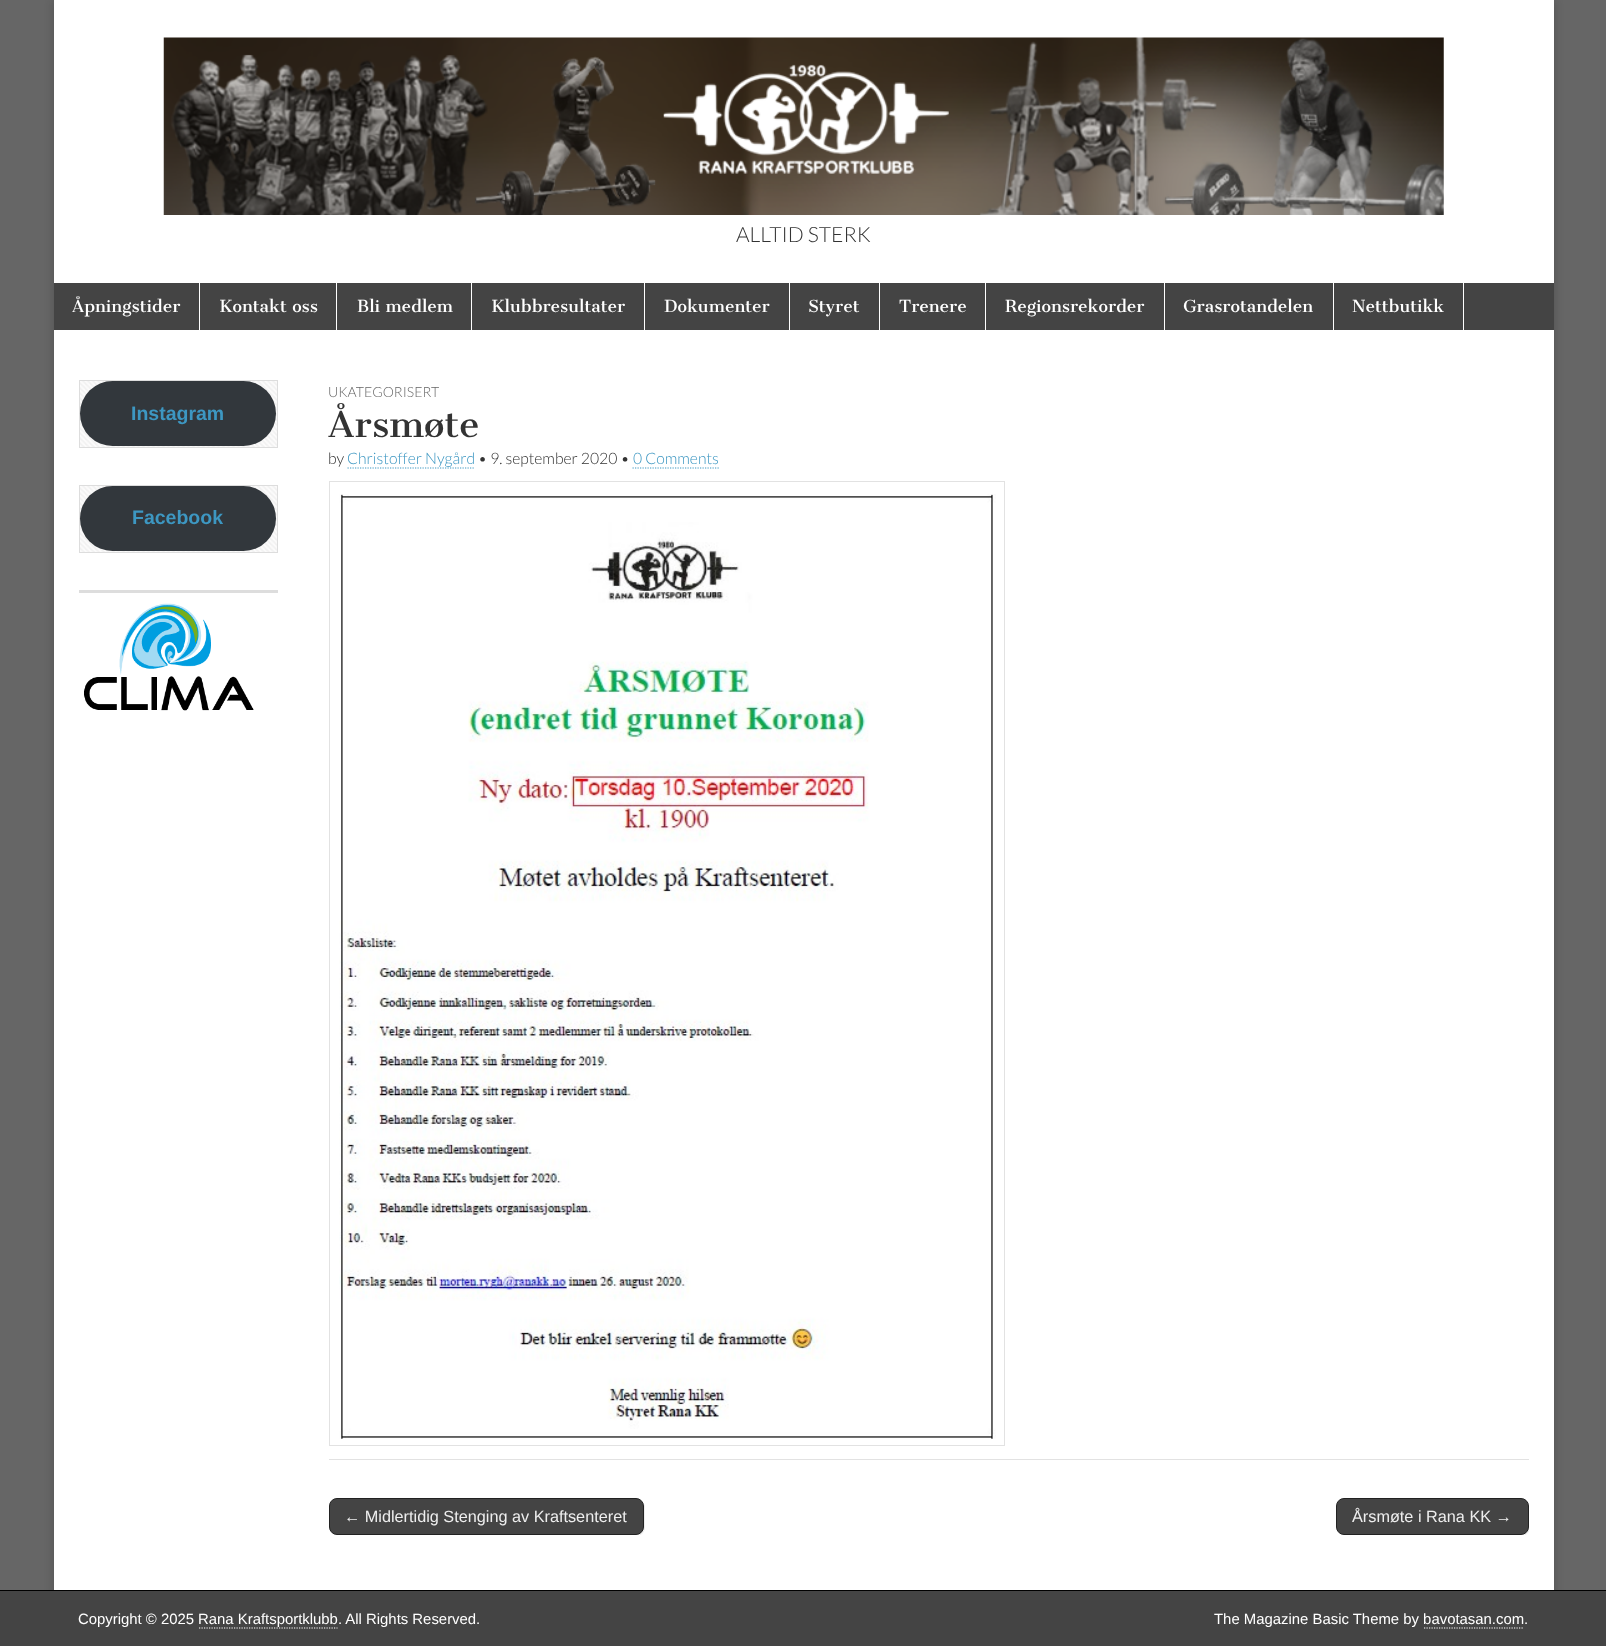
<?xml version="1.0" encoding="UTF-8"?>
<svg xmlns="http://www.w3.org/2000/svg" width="1606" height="1646">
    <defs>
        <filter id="blur1" x="-50%" y="-200%" width="200%" height="500%"><feGaussianBlur stdDeviation="6"/></filter>
        <clipPath id="clip1"><rect x="329" y="1498" width="1200" height="37"/></clipPath>
    </defs>
    <rect width="100%" height="100%" fill="#666666"/>
    <rect x="54" y="0" width="1500" height="1646" fill="#000000" fill-opacity="0.2" filter="url(#blur1)"/>
    <rect x="54" y="0" width="1500" height="1590" fill="#FFFFFF"/>
    <image x="163" y="37" width="1281" height="178" href="img_01.png"/>
    <text x="736" y="242" font-family="Lato" font-size="21" font-weight="300" fill="#333333">ALLTID STERK</text>
    <rect x="54" y="283" width="1500" height="47" fill="#444444"/>
    <rect x="199" y="283" width="1" height="47" fill="#FFFFFF"/>
    <text x="72" y="312" font-family="Cantata One" font-size="16.25" fill="#FFFFFF">Åpningstider</text>
    <rect x="336" y="283" width="1" height="47" fill="#FFFFFF"/>
    <text x="219" y="312" font-family="Cantata One" font-size="16.25" fill="#FFFFFF">Kontakt oss</text>
    <rect x="471" y="283" width="1" height="47" fill="#FFFFFF"/>
    <text x="357" y="312" font-family="Cantata One" font-size="16.25" fill="#FFFFFF">Bli medlem</text>
    <rect x="644" y="283" width="1" height="47" fill="#FFFFFF"/>
    <text x="491" y="312" font-family="Cantata One" font-size="16.25" fill="#FFFFFF">Klubbresultater</text>
    <rect x="789" y="283" width="1" height="47" fill="#FFFFFF"/>
    <text x="664" y="312" font-family="Cantata One" font-size="16.25" fill="#FFFFFF">Dokumenter</text>
    <rect x="879" y="283" width="1" height="47" fill="#FFFFFF"/>
    <text x="808" y="312" font-family="Cantata One" font-size="16.25" fill="#FFFFFF">Styret</text>
    <rect x="985" y="283" width="1" height="47" fill="#FFFFFF"/>
    <text x="899" y="312" font-family="Cantata One" font-size="16.25" fill="#FFFFFF">Trenere</text>
    <rect x="1164" y="283" width="1" height="47" fill="#FFFFFF"/>
    <text x="1005" y="312" font-family="Cantata One" font-size="16.25" fill="#FFFFFF">Regionsrekorder</text>
    <rect x="1333" y="283" width="1" height="47" fill="#FFFFFF"/>
    <text x="1183" y="312" font-family="Cantata One" font-size="16.25" fill="#FFFFFF">Grasrotandelen</text>
    <rect x="1463" y="283" width="1" height="47" fill="#FFFFFF"/>
    <text x="1352" y="312" font-family="Cantata One" font-size="16.25" fill="#FFFFFF">Nettbutikk</text>
    <image x="80" y="381" width="197" height="66" href="img_02.png"/>
    <rect x="79.5" y="380.5" width="198" height="67" fill="none" stroke="#DDDDDD"/>
    <rect x="80" y="381" width="196" height="65" rx="32.5" fill="#32373C"/>
    <text x="131" y="420" font-family="Liberation Sans" font-size="19.5" font-weight="700" fill="#3D97C2">Instagram</text>
    <image x="80" y="486" width="197" height="66" href="img_02.png"/>
    <rect x="79.5" y="485.5" width="198" height="67" fill="none" stroke="#DDDDDD"/>
    <rect x="80" y="486" width="196" height="65" rx="32.5" fill="#32373C"/>
    <text x="132" y="524" font-family="Liberation Sans" font-size="19.5" font-weight="700" fill="#3D97C2">Facebook</text>
    <rect x="79" y="590" width="199" height="3" fill="#DDDDDD"/>
    <image x="84" y="603" width="170" height="108" href="img_03.png"/>
    <rect x="329" y="1459" width="1200" height="1" fill="#E2E2E2"/>
    <text x="328" y="397" font-family="Lato" font-size="14" font-weight="300" fill="#666666">UKATEGORISERT</text>
    <text x="328" y="437" font-family="Cantata One" font-size="35" fill="#333333">Årsmøte</text>
    <text x="328" y="464" font-family="Lato" font-size="15.75" font-weight="300" fill="#333333">by</text>
    <text x="347" y="464" font-family="Lato" font-size="15.75" font-weight="300" fill="#3D97C2">Christoffer Nygård</text>
    <path d="M 347.5 468 H 475" fill="none" stroke="#3D97C2" stroke-width="1.2" stroke-dasharray="1.25 1.25"/>
    <text x="478" y="464" font-family="Lato" font-size="15.75" font-weight="300" fill="#333333">• 9. september 2020 •</text>
    <text x="633" y="464" font-family="Lato" font-size="15.75" font-weight="300" fill="#3D97C2">0 Comments</text>
    <path d="M 632.5 468 H 719" fill="none" stroke="#3D97C2" stroke-width="1.2" stroke-dasharray="1.25 1.25"/>
    <rect x="329.5" y="481.5" width="675" height="964" fill="none" stroke="#E2E2E2"/>
    <image x="339" y="494" width="657" height="945" href="img_04.png"/>
    <g clip-path="url(#clip1)">
        <path d="M 333 1534 C 334 1535 336 1536 338 1536 H 637 C 641 1536 645 1532 645 1528 V 1507 C 645 1505 644 1503 643 1502 L 644 1505 V 1528 C 644 1532 640 1535 636 1535 H 336 Z" fill="#EEEEEE"/>
    </g>
    <rect x="329.5" y="1498.5" width="314" height="36" rx="7.5" fill="#444444" stroke="#222222"/>
    <text x="344" y="1522" font-family="Liberation Sans" font-size="16.25" fill="#EEEEEE">← Midlertidig Stenging av Kraftsenteret</text>
    <g clip-path="url(#clip1)">
        <path d="M 1342 1535 C 1343 1536 1344 1536 1346 1536 H 1522 C 1526 1536 1530 1532 1530 1528 V 1507 C 1530 1505 1529 1503 1528 1502 C 1530 1506 1529 1516 1529 1520 C 1529 1526 1530 1535 1521 1535 Z" fill="#EEEEEE"/>
    </g>
    <rect x="1336.5" y="1498.5" width="192" height="36" rx="7.5" fill="#444444" stroke="#222222"/>
    <text x="1352" y="1522" font-family="Liberation Sans" font-size="16.25" fill="#EEEEEE">Årsmøte i Rana KK →</text>
    <rect x="0" y="1591" width="1606" height="55" fill="#444444"/>
    <rect x="0" y="1590" width="1606" height="1" fill="#000000"/>
    <text x="78" y="1624" font-family="Liberation Sans" font-size="14.9" fill="#FFFFFF">Copyright © 2025</text>
    <path d="M 199 1628 H 337.5" fill="none" stroke="#FFFFFF" stroke-width="1.2" stroke-dasharray="1.25 1.25"/>
    <text x="198" y="1624" font-family="Liberation Sans" font-size="14.9" fill="#FFFFFF">Rana Kraftsportklubb. All Rights Reserved.</text>
    <text x="1214" y="1624" font-family="Liberation Sans" font-size="14.9" fill="#FFFFFF">The Magazine Basic Theme by bavotasan.com.</text>
    <path d="M 1424 1628 H 1524" fill="none" stroke="#FFFFFF" stroke-width="1.2" stroke-dasharray="1.25 1.25"/>
</svg>
